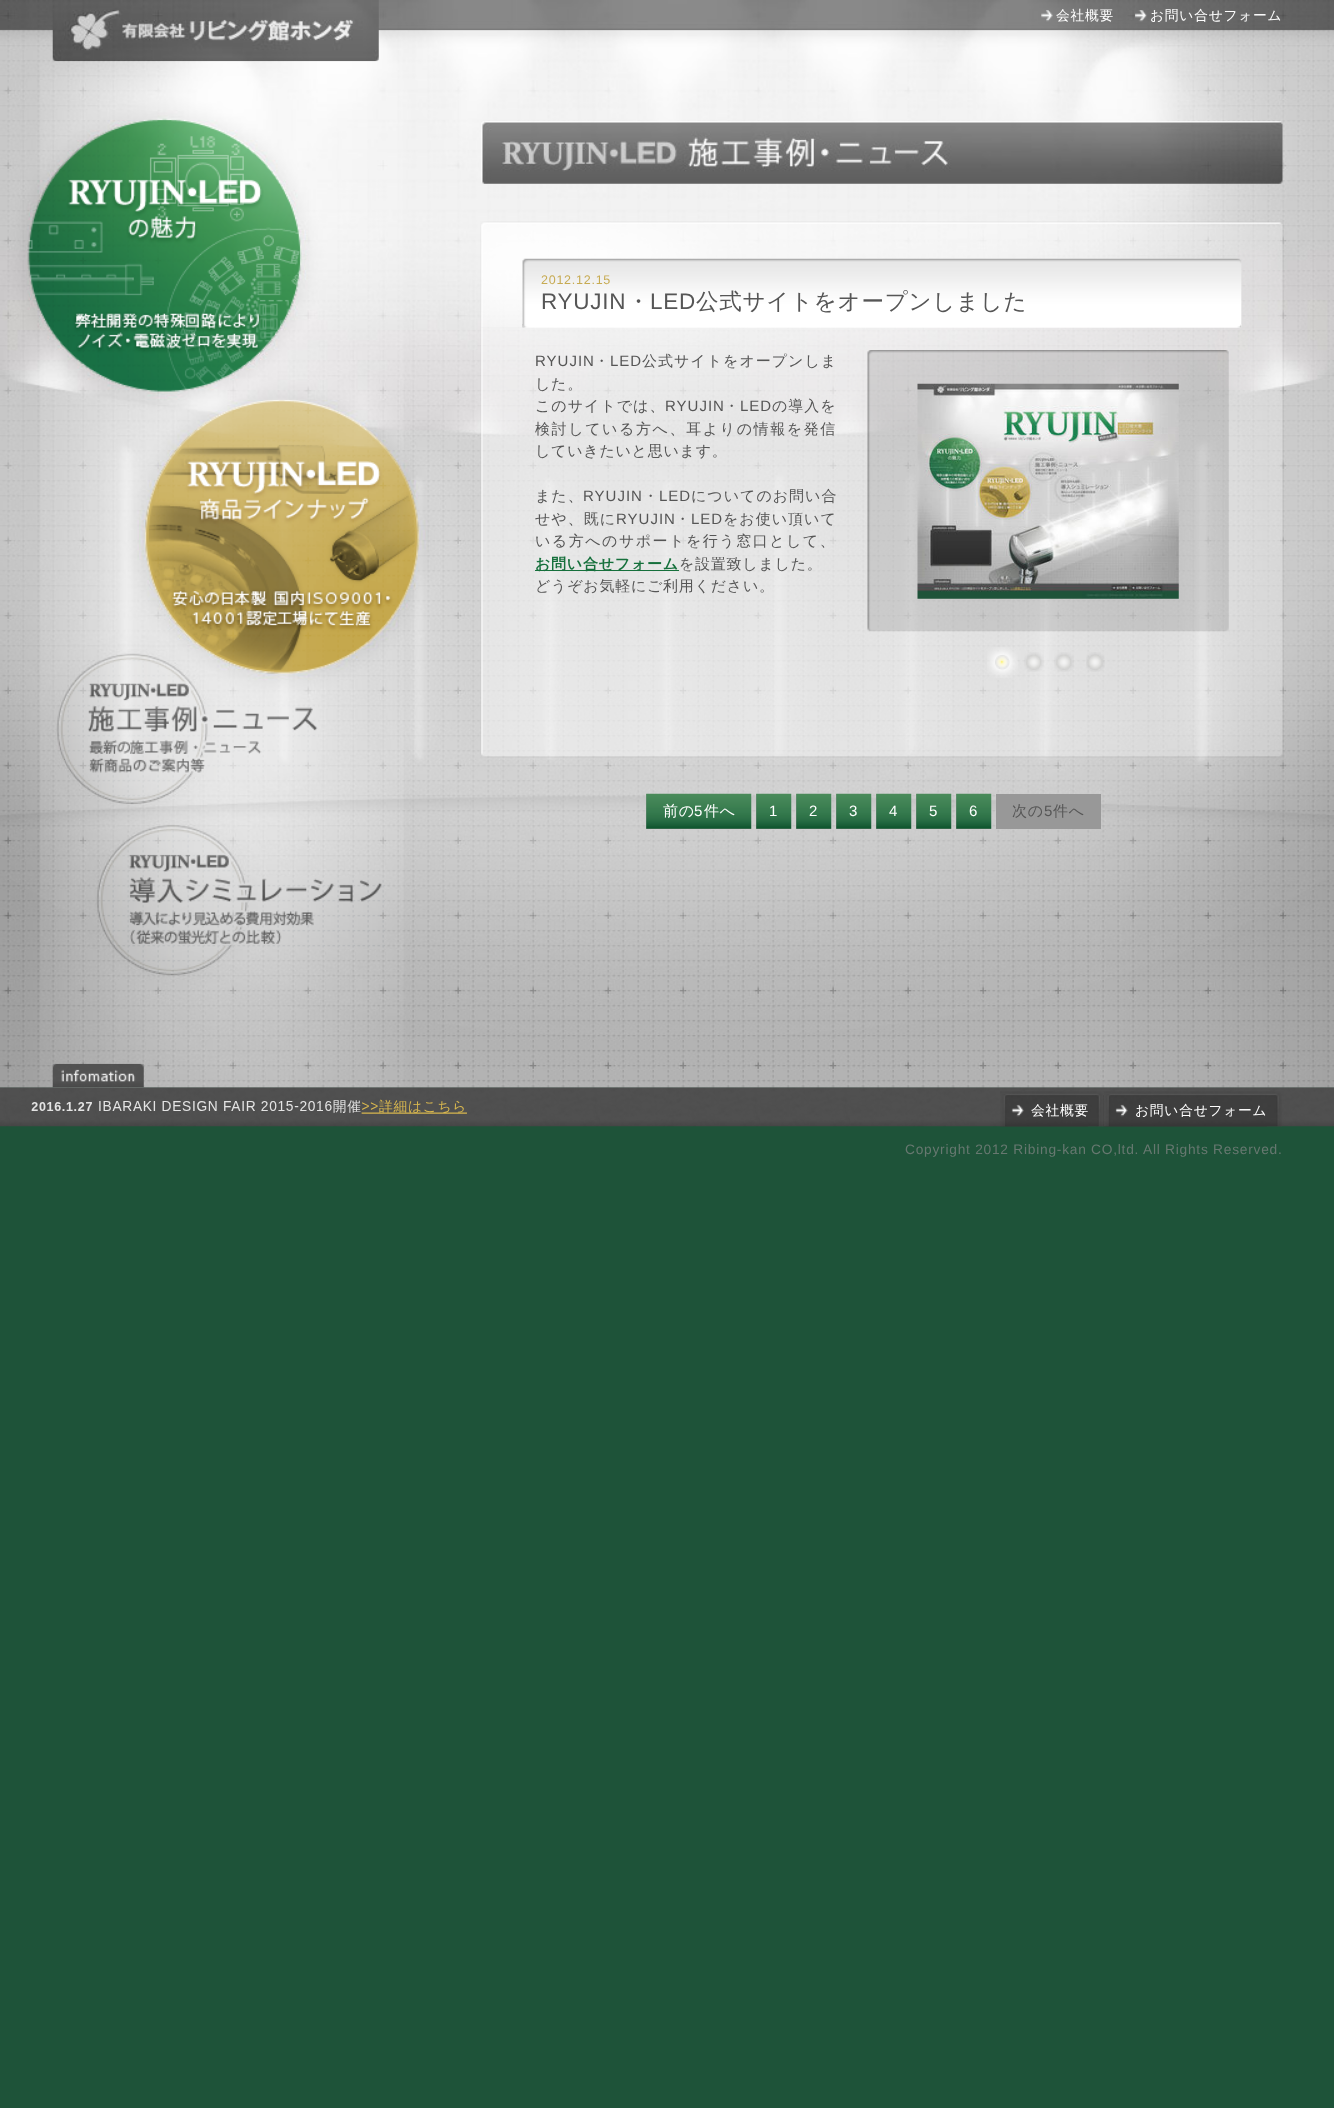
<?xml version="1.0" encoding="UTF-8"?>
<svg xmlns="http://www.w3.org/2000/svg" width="1334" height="2108">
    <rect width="100%" height="100%" fill="#1E5339"/>
    <image x="0" y="1087" width="1334" height="1" href="img_01.png"/>
    <image x="0" y="0" width="1334" height="1088" href="img_02.png"/>
    <image x="52" y="0" width="327" height="62" href="img_03.png"/>
    <image x="1041" y="10" width="12" height="12" href="img_04.png"/>
    <text x="1056" y="20" font-family="WenQuanYi Zen Hei" font-size="13.75" font-weight="500" letter-spacing="0.75" fill="#FFFFFF">会社概要</text>
    <image x="1135" y="10" width="12" height="12" href="img_05.png"/>
    <text x="1150" y="20" font-family="WenQuanYi Zen Hei" font-size="13.75" font-weight="500" letter-spacing="0.75" fill="#FFFFFF">お問い合せフォーム</text>
    <image x="27" y="118" width="275" height="274" href="img_06.png"/>
    <image x="145" y="400" width="274" height="274" href="img_07.png"/>
    <image x="58" y="656" width="260" height="148" href="img_08.png"/>
    <image x="98" y="827" width="287" height="149" href="img_09.png"/>
    <image x="481" y="121" width="802" height="63" href="img_10.png"/>
    <image x="480" y="221" width="804" height="107" href="img_11.png"/>
    <text x="541" y="284" font-family="Liberation Sans" font-size="12.5" letter-spacing="0.75" fill="#C7AB53">2012.12.15</text>
    <image x="522" y="324" width="720" height="4" href="img_12.png"/>
    <text x="541" y="309" font-family="Liberation Sans" font-size="22.5" letter-spacing="0.75" fill="#565656">RYUJIN</text>
    <text x="627" y="309" font-family="WenQuanYi Zen Hei" font-size="22.5" font-weight="500" letter-spacing="0.75" fill="#565656">・</text>
    <text x="650" y="309" font-family="Liberation Sans" font-size="22.5" letter-spacing="0.75" fill="#565656">LED</text>
    <text x="696" y="309" font-family="WenQuanYi Zen Hei" font-size="22.5" font-weight="500" letter-spacing="0.75" fill="#565656">公式サイトをオープンしました</text>
    <image x="480" y="327" width="804" height="431" href="img_13.png"/>
    <text x="535" y="366" font-family="Liberation Sans" font-size="15" letter-spacing="1" fill="#565656">RYUJIN</text>
    <text x="594" y="366" font-family="WenQuanYi Zen Hei" font-size="15" font-weight="500" letter-spacing="1" fill="#565656">・</text>
    <text x="610" y="366" font-family="Liberation Sans" font-size="15" letter-spacing="1" fill="#565656">LED</text>
    <text x="642" y="366" font-family="WenQuanYi Zen Hei" font-size="15" font-weight="500" letter-spacing="1" fill="#565656">公式サイトをオープンしま</text>
    <text x="535" y="389" font-family="WenQuanYi Zen Hei" font-size="15" font-weight="500" letter-spacing="0.75" fill="#565656">した。</text>
    <text x="535" y="411" font-family="WenQuanYi Zen Hei" font-size="15" font-weight="500" letter-spacing="1" fill="#565656">このサイトでは、</text>
    <text x="665" y="411" font-family="Liberation Sans" font-size="15" letter-spacing="1" fill="#565656">RYUJIN</text>
    <text x="724" y="411" font-family="WenQuanYi Zen Hei" font-size="15" font-weight="500" letter-spacing="1" fill="#565656">・</text>
    <text x="740" y="411" font-family="Liberation Sans" font-size="15" letter-spacing="1" fill="#565656">LED</text>
    <text x="772" y="411" font-family="WenQuanYi Zen Hei" font-size="15" font-weight="500" letter-spacing="1" fill="#565656">の導入を</text>
    <text x="535" y="434" font-family="WenQuanYi Zen Hei" font-size="15" font-weight="500" letter-spacing="1.6" fill="#565656">検討している方へ、耳よりの情報を発信</text>
    <text x="535" y="456" font-family="WenQuanYi Zen Hei" font-size="15" font-weight="500" letter-spacing="0.75" fill="#565656">していきたいと思います。</text>
    <text x="535" y="501" font-family="WenQuanYi Zen Hei" font-size="15" font-weight="500" letter-spacing="1" fill="#565656">また、</text>
    <text x="583" y="501" font-family="Liberation Sans" font-size="15" letter-spacing="1" fill="#565656">RYUJIN</text>
    <text x="643" y="501" font-family="WenQuanYi Zen Hei" font-size="15" font-weight="500" letter-spacing="1" fill="#565656">・</text>
    <text x="659" y="501" font-family="Liberation Sans" font-size="15" letter-spacing="1" fill="#565656">LED</text>
    <text x="691" y="501" font-family="WenQuanYi Zen Hei" font-size="15" font-weight="500" letter-spacing="1" fill="#565656">についてのお問い合</text>
    <text x="535" y="524" font-family="WenQuanYi Zen Hei" font-size="15" font-weight="500" letter-spacing="1" fill="#565656">せや、既に</text>
    <text x="616" y="524" font-family="Liberation Sans" font-size="15" letter-spacing="1" fill="#565656">RYUJIN</text>
    <text x="675" y="524" font-family="WenQuanYi Zen Hei" font-size="15" font-weight="500" letter-spacing="1" fill="#565656">・</text>
    <text x="691" y="524" font-family="Liberation Sans" font-size="15" letter-spacing="1" fill="#565656">LED</text>
    <text x="723" y="524" font-family="WenQuanYi Zen Hei" font-size="15" font-weight="500" letter-spacing="1" fill="#565656">をお使い頂いて</text>
    <text x="535" y="546" font-family="WenQuanYi Zen Hei" font-size="15" font-weight="500" letter-spacing="1.5" fill="#565656">いる方へのサポートを行う窓口として、</text>
    <rect x="535" y="570" width="144" height="1" fill="#16703C"/>
    <text x="535" y="569" font-family="WenQuanYi Zen Hei" font-size="15" font-weight="700" letter-spacing="0.75" fill="#16703C">お問い合せフォーム</text>
    <text x="679" y="569" font-family="WenQuanYi Zen Hei" font-size="15" font-weight="500" letter-spacing="0.75" fill="#565656">を設置致しました。</text>
    <text x="535" y="591" font-family="WenQuanYi Zen Hei" font-size="15" font-weight="500" letter-spacing="0.75" fill="#565656">どうぞお気軽にご利用ください。</text>
    <image x="867" y="350" width="362" height="282" href="img_14.png"/>
    <image x="917" y="383" width="262" height="216" href="img_15.png"/>
    <image x="987" y="647" width="31" height="31" href="img_16.png"/>
    <image x="1024" y="652" width="20" height="20" href="img_17.png"/>
    <image x="1054" y="652" width="20" height="20" href="img_18.png"/>
    <image x="1086" y="652" width="19" height="20" href="img_19.png"/>
    <rect x="646" y="794" width="105" height="35" fill="#989898"/>
    <image x="646" y="793" width="106" height="36" href="img_20.png"/>
    <text x="663" y="816" font-family="WenQuanYi Zen Hei" font-size="15" font-weight="500" letter-spacing="0.75" fill="#FFFFFF">前の</text>
    <text x="694" y="816" font-family="Liberation Sans" font-size="15" letter-spacing="0.75" fill="#FFFFFF">5</text>
    <text x="704" y="816" font-family="WenQuanYi Zen Hei" font-size="15" font-weight="500" letter-spacing="0.75" fill="#FFFFFF">件へ</text>
    <rect x="756" y="794" width="35" height="35" fill="#989898"/>
    <image x="756" y="793" width="36" height="36" href="img_21.png"/>
    <text x="769" y="816" font-family="Liberation Sans" font-size="15" letter-spacing="0.75" fill="#FFFFFF">1</text>
    <rect x="796" y="794" width="35" height="35" fill="#989898"/>
    <image x="796" y="793" width="36" height="36" href="img_22.png"/>
    <text x="809" y="816" font-family="Liberation Sans" font-size="15" letter-spacing="0.75" fill="#FFFFFF">2</text>
    <rect x="836" y="794" width="35" height="35" fill="#989898"/>
    <image x="836" y="793" width="36" height="36" href="img_23.png"/>
    <text x="849" y="816" font-family="Liberation Sans" font-size="15" letter-spacing="0.75" fill="#FFFFFF">3</text>
    <rect x="876" y="794" width="35" height="35" fill="#989898"/>
    <image x="876" y="793" width="36" height="36" href="img_24.png"/>
    <text x="889" y="816" font-family="Liberation Sans" font-size="15" letter-spacing="0.75" fill="#FFFFFF">4</text>
    <rect x="916" y="794" width="35" height="35" fill="#989898"/>
    <image x="916" y="793" width="36" height="36" href="img_25.png"/>
    <text x="929" y="816" font-family="Liberation Sans" font-size="15" letter-spacing="0.75" fill="#FFFFFF">5</text>
    <rect x="956" y="794" width="35" height="35" fill="#989898"/>
    <image x="956" y="793" width="36" height="36" href="img_26.png"/>
    <text x="969" y="816" font-family="Liberation Sans" font-size="15" letter-spacing="0.75" fill="#FFFFFF">6</text>
    <rect x="996" y="794" width="105" height="35" fill="#989898"/>
    <text x="1012" y="816" font-family="WenQuanYi Zen Hei" font-size="15" font-weight="500" letter-spacing="0.75" fill="#565656">次の</text>
    <text x="1044" y="816" font-family="Liberation Sans" font-size="15" letter-spacing="0.75" fill="#565656">5</text>
    <text x="1053" y="816" font-family="WenQuanYi Zen Hei" font-size="15" font-weight="500" letter-spacing="0.75" fill="#565656">件へ</text>
    <image x="0" y="1087" width="1334" height="40" href="img_27.png"/>
    <image x="52" y="1063" width="92" height="25" href="img_28.png"/>
    <image x="31" y="1099" width="436" height="15" href="img_29.png"/>
    <image x="1000" y="1091" width="104" height="36" href="img_30.png"/>
    <image x="1000" y="1094" width="88" height="33" href="img_31.png"/>
    <text x="1031" y="1115" font-family="WenQuanYi Zen Hei" font-size="13.75" font-weight="500" letter-spacing="0.75" fill="#FFFFFF">会社概要</text>
    <image x="1103" y="1091" width="179" height="36" href="img_32.png"/>
    <image x="1104" y="1094" width="163" height="33" href="img_33.png"/>
    <text x="1135" y="1115" font-family="WenQuanYi Zen Hei" font-size="13.75" font-weight="500" letter-spacing="0.75" fill="#FFFFFF">お問い合せフォーム</text>
    <text x="905" y="1154" font-family="Liberation Sans" font-size="13.75" letter-spacing="0.75" fill="#677870">Copyright 2012 Ribing-kan CO,ltd. All Rights Reserved.</text>
</svg>
